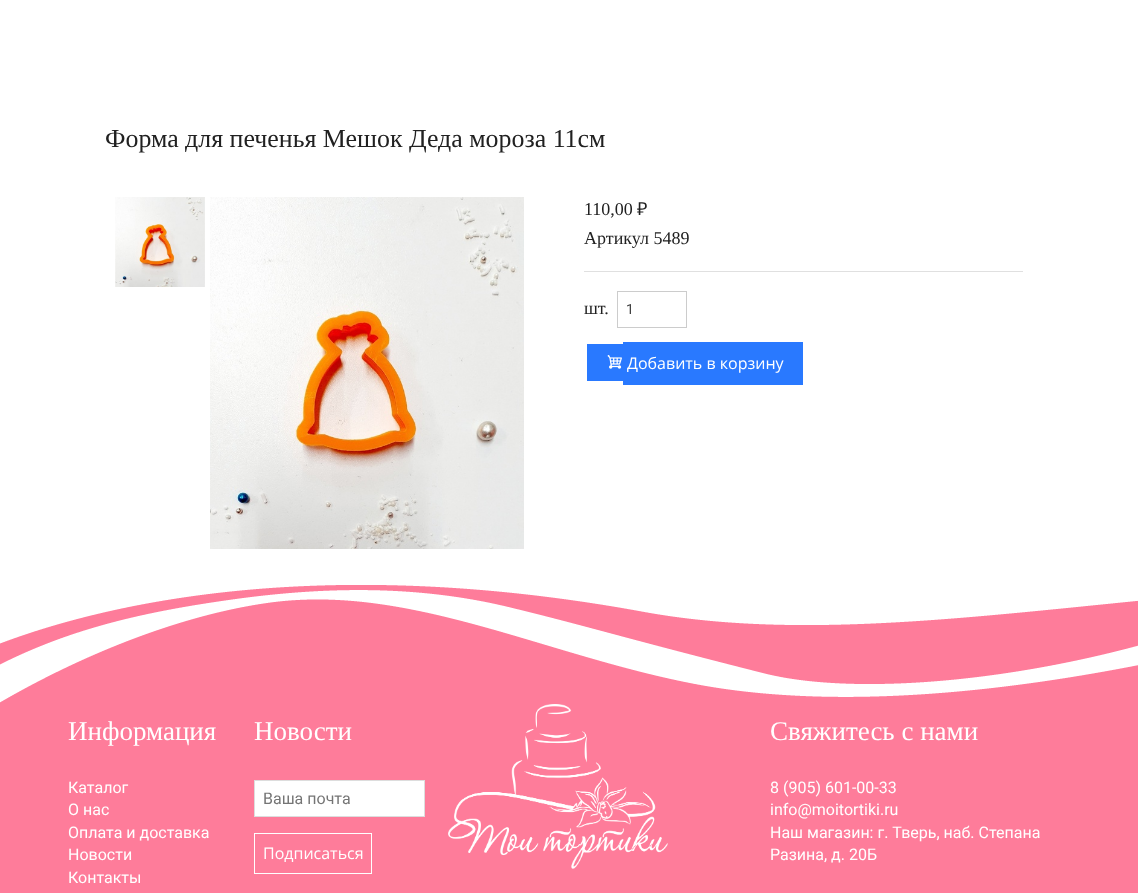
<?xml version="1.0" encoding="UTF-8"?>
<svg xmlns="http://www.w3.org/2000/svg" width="1138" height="893">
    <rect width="100%" height="100%" fill="#FFFFFF"/>
    <text x="105" y="147" font-family="Liberation Serif" font-size="25.9" fill="#212121">Форма для печенья Мешок Деда мороза 11см</text>
    <image x="115" y="197" width="90" height="90" href="img_01.png"/>
    <image x="210" y="197" width="314" height="352" href="img_02.png"/>
    <text x="584" y="215" font-family="Liberation Serif" font-size="18" fill="#212121">110,00</text>
    <text x="637" y="215" font-family="Noto Sans" font-size="18" fill="#212121">₽</text>
    <text x="584" y="244" font-family="Liberation Serif" font-size="18" fill="#212121">Артикул 5489</text>
    <rect x="584" y="271" width="439" height="1" fill="#E0E0E0"/>
    <text x="584" y="314" font-family="Liberation Serif" font-size="18" fill="#212121">шт.</text>
    <rect x="617.5" y="291.5" width="69" height="36" fill="none" stroke="#CCCCCC"/>
    <text x="626" y="314" font-family="Roboto" font-size="14" fill="#404040">1</text>
    <rect x="587" y="344" width="36" height="37" fill="#2979FF"/>
    <image x="607" y="355" width="15" height="14" href="img_03.png"/>
    <rect x="623" y="342" width="180" height="43" fill="#2979FF"/>
    <text x="627" y="369" font-family="Open Sans" font-size="16" fill="#FFFFFF">Добавить в корзину</text>
    <image x="0" y="585" width="1138" height="308" href="img_04.png"/>
    <text x="68" y="740" font-family="Liberation Serif" font-size="27" fill="#FFFFFF">Информация</text>
    <text font-family="Roboto" font-size="16" fill="#FFFFFF">
        <tspan x="68" y="793">Каталог</tspan>
        <tspan x="68" y="815">О нас</tspan>
        <tspan x="68" y="838">Оплата и доставка</tspan>
        <tspan x="68" y="860">Новости</tspan>
        <tspan x="68" y="883">Контакты</tspan>
    </text>
    <text x="254" y="740" font-family="Liberation Serif" font-size="27" fill="#FFFFFF">Новости</text>
    <rect x="254.5" y="780.5" width="170" height="36" fill="#FFFFFF" stroke="#DDDDDD"/>
    <text x="263" y="804" font-family="Roboto" font-size="16" fill="#757575">Ваша почта</text>
    <rect x="254.5" y="833.5" width="117" height="40" fill="none" stroke="#FFFFFF"/>
    <text x="263" y="859" font-family="Open Sans" font-size="16" fill="#FFFFFF">Подписаться</text>
    <image x="448" y="704" width="220" height="165" href="img_05.png"/>
    <text x="770" y="740" font-family="Liberation Serif" font-size="27" fill="#FFFFFF">Свяжитесь с нами</text>
    <text font-family="Roboto" font-size="16" fill="#FFFFFF">
        <tspan x="770" y="793">8 (905) 601-00-33</tspan>
        <tspan x="770" y="815">info@moitortiki.ru</tspan>
        <tspan x="770" y="838">Наш магазин: г. Тверь, наб. Степана</tspan>
        <tspan x="770" y="860">Разина, д. 20Б</tspan>
    </text>
</svg>
